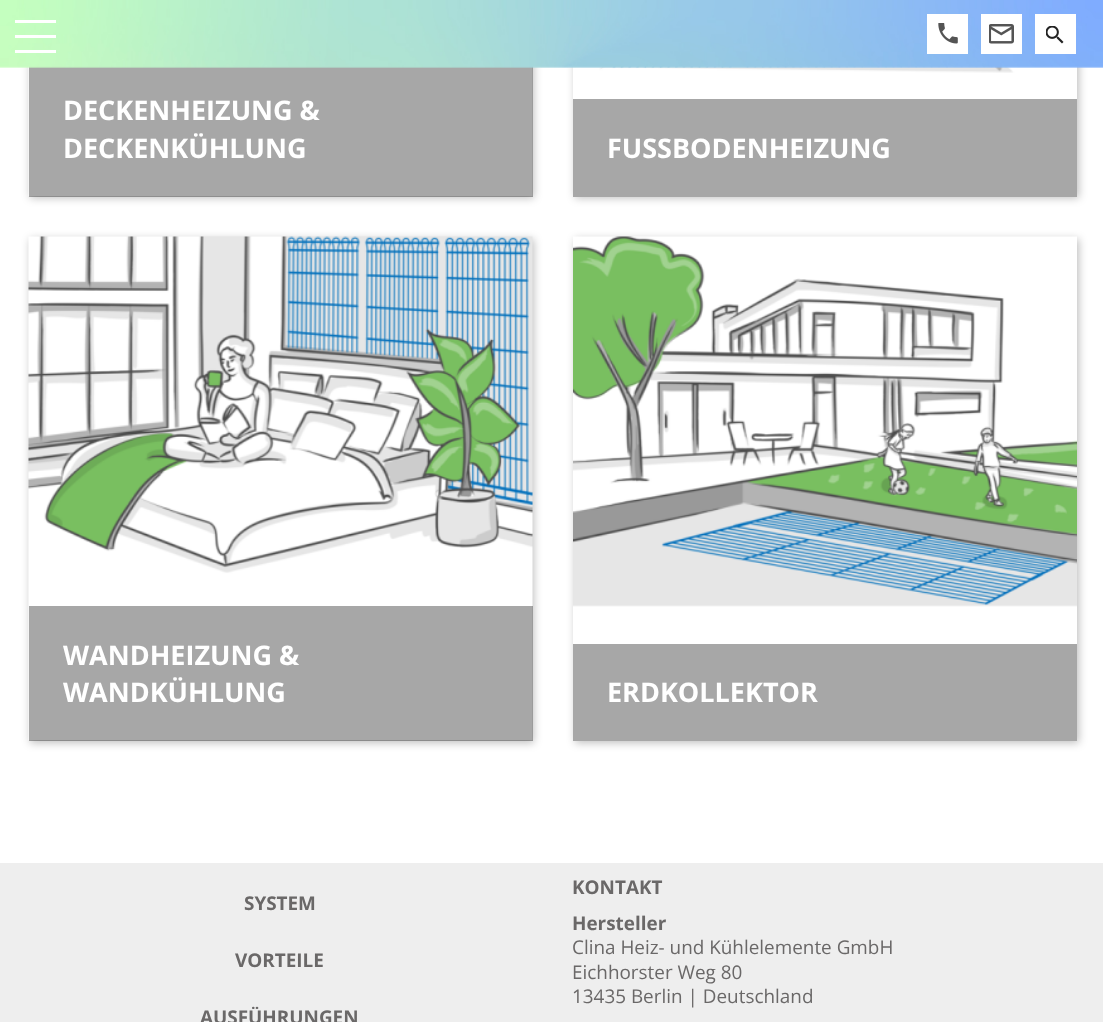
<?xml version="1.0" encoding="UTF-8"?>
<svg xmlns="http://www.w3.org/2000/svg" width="1103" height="1022">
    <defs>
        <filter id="blur1" x="-50%" y="-200%" width="200%" height="500%"><feGaussianBlur stdDeviation="4"/></filter>
        <clipPath id="clip1"><path d="M 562 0 H 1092 V 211 H 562 Z M 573 -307 H 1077 V 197 H 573 Z" clip-rule="evenodd"/></clipPath>
        <clipPath id="clip2"><path d="M 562 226 H 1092 V 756 H 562 Z M 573 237 H 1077 V 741 H 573 Z" clip-rule="evenodd"/></clipPath>
    </defs>
    <rect width="100%" height="100%" fill="#FFFFFF"/>
    <rect x="30" y="-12" width="504" height="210" fill="#000000" fill-opacity="0.25" filter="url(#blur1)"/>
    <image x="28" y="66" width="505" height="130" href="img_05.png"/>
    <rect x="29" y="66" width="504" height="131" fill="#222222" fill-opacity="0.4"/>
    <g clip-path="url(#clip1)">
        <rect x="575" y="-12" width="504" height="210" fill="#000000" fill-opacity="0.25" filter="url(#blur1)"/>
    </g>
    <image x="573" y="66" width="504" height="7" href="img_06.png"/>
    <image x="0" y="0" width="1103" height="68" href="img_01.png"/>
    <rect x="15" y="50" width="41" height="3" fill="#FFFFFF"/>
    <rect x="15" y="35" width="41" height="3" fill="#FFFFFF"/>
    <rect x="15" y="20" width="41" height="3" fill="#FFFFFF"/>
    <rect x="927" y="14" width="41" height="40" fill="#FFFFFF"/>
    <image x="938" y="23" width="20" height="21" href="img_02.png"/>
    <rect x="981" y="14" width="41" height="40" fill="#FFFFFF"/>
    <image x="989" y="24" width="25" height="20" href="img_03.png"/>
    <rect x="1035" y="14" width="41" height="40" fill="#FFFFFF"/>
    <image x="1046" y="26" width="18" height="18" href="img_04.png"/>
    <text font-family="Open Sans" font-size="27" font-weight="700" fill="#FFFFFF">
        <tspan x="63" y="120">DECKENHEIZUNG &amp;</tspan>
        <tspan x="63" y="158">DECKENKÜHLUNG</tspan>
    </text>
    <rect x="573" y="99" width="504" height="98" fill="#222222" fill-opacity="0.4"/>
    <text x="607" y="158" font-family="Open Sans" font-size="27" font-weight="700" fill="#FFFFFF">FUSSBODENHEIZUNG</text>
    <rect x="30" y="239" width="504" height="504" fill="#000000" fill-opacity="0.25" filter="url(#blur1)"/>
    <image x="28" y="236" width="505" height="504" href="img_07.png"/>
    <rect x="29" y="606" width="504" height="135" fill="#222222" fill-opacity="0.4"/>
    <text font-family="Open Sans" font-size="27" font-weight="700" fill="#FFFFFF">
        <tspan x="63" y="665">WANDHEIZUNG &amp;</tspan>
        <tspan x="63" y="702">WANDKÜHLUNG</tspan>
    </text>
    <g clip-path="url(#clip2)">
        <rect x="575" y="239" width="504" height="504" fill="#000000" fill-opacity="0.25" filter="url(#blur1)"/>
    </g>
    <image x="573" y="236" width="504" height="371" href="img_08.png"/>
    <rect x="573" y="644" width="504" height="97" fill="#A7A7A7"/>
    <text x="607" y="702" font-family="Open Sans" font-size="27" font-weight="700" fill="#FFFFFF">ERDKOLLEKTOR</text>
    <rect x="0" y="863" width="1103" height="159" fill="#EEEEEE"/>
    <text x="244" y="910" font-family="Open Sans" font-size="18.9" font-weight="700" fill="#6A6868">SYSTEM</text>
    <text x="235" y="967" font-family="Open Sans" font-size="18.9" font-weight="700" fill="#6A6868">VORTEILE</text>
    <text x="200" y="1024" font-family="Open Sans" font-size="18.9" font-weight="700" fill="#6A6868">AUSFÜHRUNGEN</text>
    <text font-family="Open Sans" font-size="18.9" font-weight="700" fill="#6A6868">
        <tspan x="572" y="894">KONTAKT</tspan>
        <tspan x="572" y="930">Hersteller</tspan>
    </text>
    <text font-family="Open Sans" font-size="18.9" fill="#6A6868">
        <tspan x="572" y="954">Clina Heiz- und Kühlelemente GmbH</tspan>
        <tspan x="572" y="979">Eichhorster Weg 80</tspan>
        <tspan x="572" y="1003">13435 Berlin | Deutschland</tspan>
    </text>
</svg>
